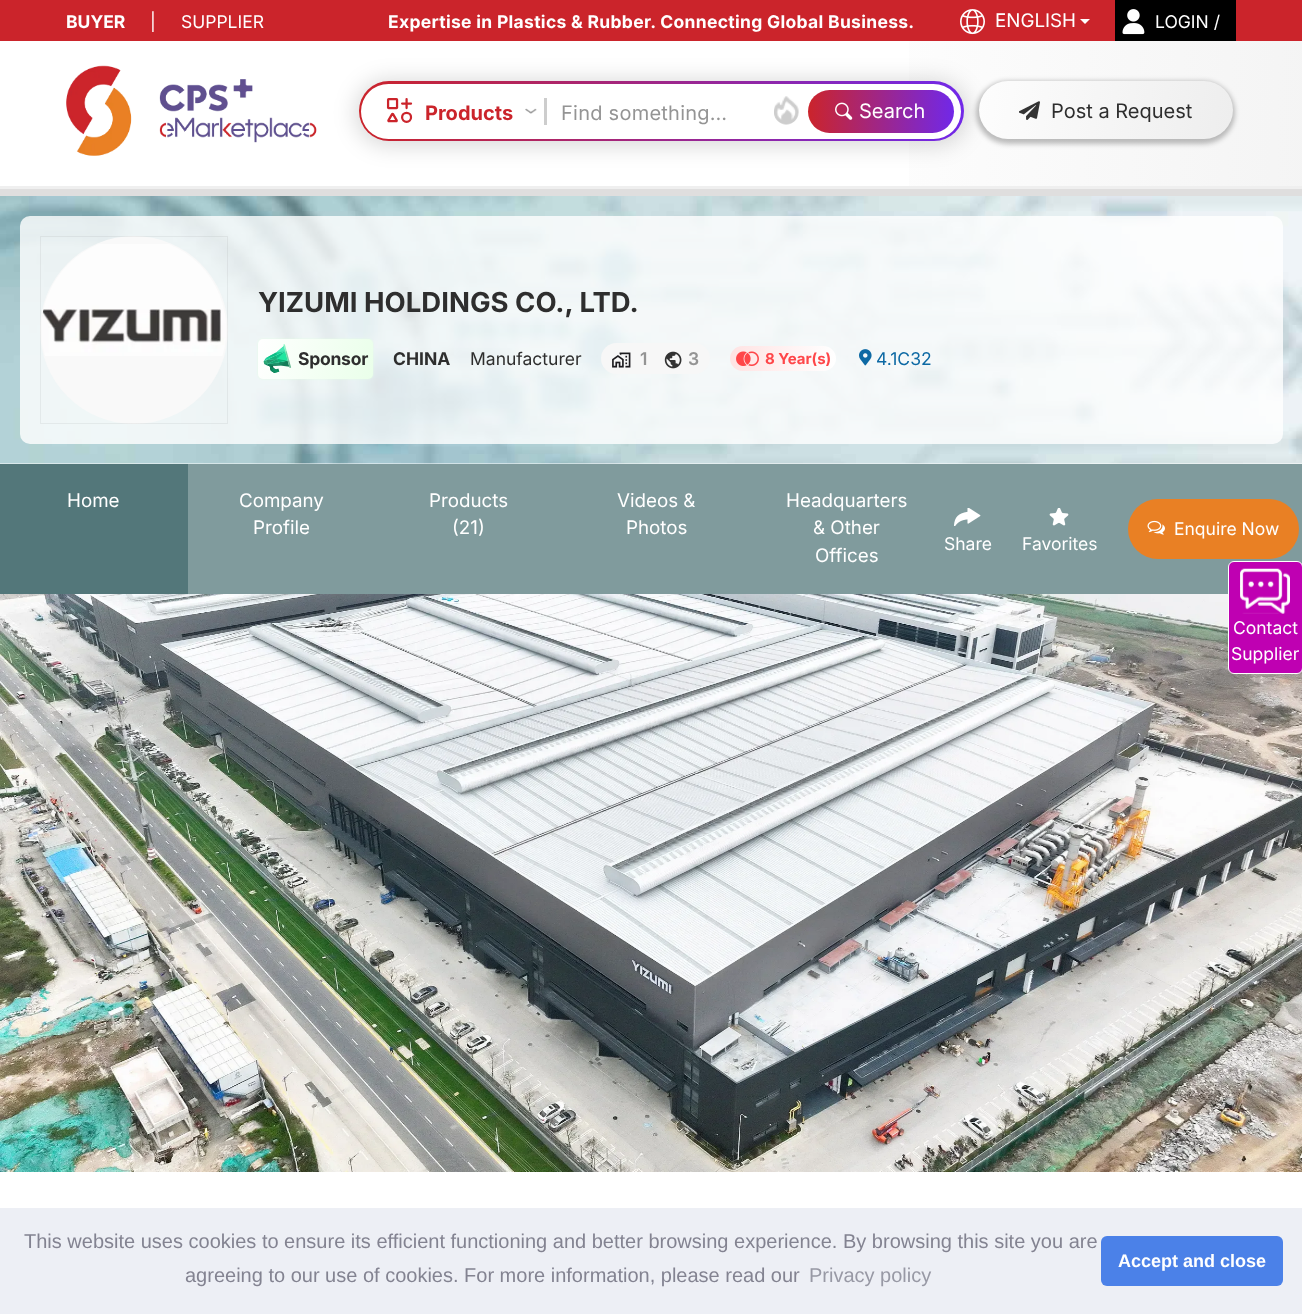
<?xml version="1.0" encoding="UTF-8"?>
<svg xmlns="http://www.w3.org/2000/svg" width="1302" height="1314">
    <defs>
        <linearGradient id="g1" gradientUnits="userSpaceOnUse" x1="-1.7" y1="91" x2="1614" y2="147"><stop offset="0.49" stop-color="#FFFFFF"/><stop offset="1" stop-color="#EEEEEE"/></linearGradient>
        <filter id="blur1" x="-50%" y="-200%" width="200%" height="500%"><feGaussianBlur stdDeviation="11"/></filter>
        <linearGradient id="g2" gradientUnits="userSpaceOnUse" x1="359" y1="111" x2="964" y2="111"><stop offset="0" stop-color="#CB242B"/><stop offset="1" stop-color="#7128E8"/></linearGradient>
        <linearGradient id="g3" gradientUnits="userSpaceOnUse" x1="808" y1="111" x2="954" y2="111"><stop offset="0" stop-color="#CB242B"/><stop offset="1" stop-color="#7128E8"/></linearGradient>
        <filter id="blur2" x="-50%" y="-200%" width="200%" height="500%"><feGaussianBlur stdDeviation="2.5"/></filter>
        <linearGradient id="g4" gradientUnits="userSpaceOnUse" x1="944" y1="84" x2="1247" y2="132"><stop offset="0" stop-color="#FFFFFF"/><stop offset="1" stop-color="#EDEDED"/></linearGradient>
        <filter id="blur3" x="-50%" y="-200%" width="200%" height="500%"><feGaussianBlur stdDeviation="1"/></filter>
        <linearGradient id="g5" gradientUnits="userSpaceOnUse" x1="257" y1="342" x2="420" y2="389"><stop offset="0" stop-color="#FFFFFF"/><stop offset="1" stop-color="#E1FFE1"/></linearGradient>
        <linearGradient id="g6" gradientUnits="userSpaceOnUse" x1="729" y1="355" x2="837" y2="363"><stop offset="0.05" stop-color="#FFE4E4"/><stop offset="0.98" stop-color="#FFFFFF"/></linearGradient>
    </defs>
    <rect width="100%" height="100%" fill="#FFFFFF"/>
    <rect x="0" y="0" width="1302" height="41" fill="#CB242B"/>
    <text x="66" y="28" font-family="Inter" font-size="17.5" font-weight="700" fill="#FFFFFF">BUYER</text>
    <text x="150" y="28" font-family="Inter" font-size="17.5" fill="#FFFFFF">|</text>
    <text x="181" y="28" font-family="Inter" font-size="17.5" fill="#FFFFFF">SUPPLIER</text>
    <text x="388" y="28" font-family="Inter" font-size="17.5" font-weight="700" letter-spacing="0.3" fill="#FFFFFF">Expertise in Plastics &amp; Rubber. Connecting Global Business.</text>
    <image x="960" y="9" width="25" height="26" href="img_01.png"/>
    <text x="995" y="27" font-family="Inter" font-size="18.75" fill="#FFFFFF">ENGLISH</text>
    <path d="M 1080 19 H 1090 L 1085 24 Z" fill="#FFFFFF"/>
    <rect x="1115" y="0" width="121" height="41" fill="#000000"/>
    <image x="1122" y="9" width="23" height="26" href="img_02.png"/>
    <text x="1155" y="28" font-family="Inter" font-size="17.5" fill="#FFFFFF">LOGIN /</text>
    <rect x="909" y="41" width="393" height="145" fill="url(#g1)"/>
    <rect x="0" y="186" width="1302" height="3" fill="#EFEFEF"/>
    <image x="66" y="65" width="251" height="91" href="img_03.png"/>
    <rect x="355" y="80" width="613" height="66" rx="33" fill="#000000" fill-opacity="0.15" filter="url(#blur1)"/>
    <rect x="359" y="81" width="605" height="60" rx="30" fill="url(#g2)"/>
    <rect x="361" y="84" width="600" height="55" rx="27.5" fill="#FFFFFF"/>
    <image x="386" y="98" width="27" height="25" href="img_04.png"/>
    <text x="425" y="120" font-family="Inter" font-size="20" font-weight="700" fill="#CB242B">Products</text>
    <image x="525" y="108" width="12" height="6" href="img_05.png"/>
    <rect x="544" y="98" width="3" height="27" fill="#CDCDCD"/>
    <text x="561" y="120" font-family="Inter" font-size="20" letter-spacing="0.25" fill="#949494">Find something…</text>
    <image x="774" y="96" width="25" height="29" href="img_06.png"/>
    <rect x="808" y="90" width="146" height="43" rx="21.5" fill="url(#g3)"/>
    <image x="835" y="102" width="18" height="18" href="img_07.png"/>
    <text x="859" y="118" font-family="Inter" font-size="20" fill="#FFFFFF">Search</text>
    <rect x="976" y="81" width="259" height="63" rx="31.5" fill="#000000" fill-opacity="0.25" filter="url(#blur2)"/>
    <rect x="979" y="81" width="254" height="58" rx="29" fill="url(#g4)"/>
    <image x="1019" y="101" width="21" height="19" href="img_08.png"/>
    <text x="1051" y="118" font-family="Inter" font-size="20" fill="#2E2E2E">Post a Request</text>
    <rect x="0" y="189" width="1302" height="7" fill="#DFDEDE"/>
    <image x="0" y="196" width="1302" height="268" href="img_09.png"/>
    <rect x="20" y="216" width="1263" height="228" rx="10" fill="#FFFFFF" fill-opacity="0.8"/>
    <circle cx="134" cy="330" r="94" fill="#F9F9F9"/>
    <rect x="40.5" y="236.5" width="187" height="187" fill="none" stroke="#000000" stroke-opacity="0.05"/>
    <image x="42" y="244" width="184" height="112" href="img_10.png"/>
    <text x="258" y="312" font-family="Inter" font-size="27.5" font-weight="700" fill="#2E2E2E">YIZUMI HOLDINGS CO., LTD.</text>
    <rect x="258" y="339" width="115" height="40" rx="5" fill="#E1FFE1" fill-opacity="0.75" filter="url(#blur3)"/>
    <rect x="258" y="339" width="115" height="40" rx="5" fill="url(#g5)"/>
    <image x="263" y="344" width="29" height="29" href="img_11.png"/>
    <text x="298" y="365" font-family="Inter" font-size="17.5" font-weight="700" letter-spacing="-0.25" fill="#2E2E2E">Sponsor</text>
    <text x="393" y="365" font-family="Inter" font-size="17.5" font-weight="700" fill="#2E2E2E">CHINA</text>
    <text x="470" y="365" font-family="Inter" font-size="17.5" fill="#2E2E2E">Manufacturer</text>
    <rect x="601" y="343" width="109" height="31" rx="15.5" fill="#F7F7F7"/>
    <image x="612" y="352" width="19" height="16" href="img_12.png"/>
    <text x="640" y="365" font-family="Inter" font-size="17.5" font-weight="600" fill="#949494">1</text>
    <image x="664" y="351" width="18" height="18" href="img_13.png"/>
    <text x="688" y="365" font-family="Inter" font-size="17.5" font-weight="600" fill="#949494">3</text>
    <rect x="730" y="346" width="106" height="25" rx="12.5" fill="url(#g6)"/>
    <image x="736" y="351" width="23" height="15" href="img_14.png"/>
    <text x="765" y="364" font-family="Inter" font-size="15" font-weight="700" fill="#FF4649">8 Year(s)</text>
    <image x="859" y="349" width="13" height="17" href="img_15.png"/>
    <text x="876" y="365" font-family="Inter" font-size="17.5" fill="#0D69A4">4.1C32</text>
    <rect x="188" y="464" width="1114" height="130" fill="#809B9D"/>
    <rect x="0" y="464" width="188" height="130" fill="#53777A"/>
    <text x="67" y="507" font-family="Inter" font-size="18.75" fill="#FFFFFF">Home</text>
    <text x="239" y="507" font-family="Inter" font-size="18.75" fill="#FFFFFF">Company</text>
    <text x="253" y="534" font-family="Inter" font-size="18.75" fill="#FFFFFF">Profile</text>
    <text x="429" y="507" font-family="Inter" font-size="18.75" fill="#FFFFFF">Products</text>
    <text x="452" y="534" font-family="Inter" font-size="18.75" fill="#FFFFFF">(21)</text>
    <text x="617" y="507" font-family="Inter" font-size="18.75" fill="#FFFFFF">Videos &amp;</text>
    <text x="626" y="534" font-family="Inter" font-size="18.75" fill="#FFFFFF">Photos</text>
    <text x="786" y="507" font-family="Inter" font-size="18.75" fill="#FFFFFF">Headquarters</text>
    <text x="813" y="534" font-family="Inter" font-size="18.75" fill="#FFFFFF">&amp; Other</text>
    <text x="815" y="562" font-family="Inter" font-size="18.75" fill="#FFFFFF">Offices</text>
    <rect x="1128" y="499" width="171" height="60" rx="30" fill="#E98024"/>
    <image x="1147" y="520" width="18" height="15" href="img_16.png"/>
    <text x="1174" y="535" font-family="Inter" font-size="17.5" fill="#FFFFFF">Enquire Now</text>
    <image x="954" y="508" width="27" height="18" href="img_17.png"/>
    <text x="944" y="550" font-family="Inter" font-size="17.5" fill="#FFFFFF">Share</text>
    <image x="1049" y="508" width="20" height="18" href="img_18.png"/>
    <text x="1022" y="550" font-family="Inter" font-size="17.5" fill="#FFFFFF">Favorites</text>
    <image x="0" y="594" width="1302" height="578" href="img_20.png"/>
    <rect x="1228.5" y="561.5" width="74" height="112" rx="5.5" fill="#BF00B2" stroke="#FFFFFF"/>
    <image x="1240" y="568" width="50" height="46" href="img_19.png"/>
    <text x="1233" y="634" font-family="Inter" font-size="17.5" fill="#FFFFFF">Contact</text>
    <text x="1231" y="660" font-family="Inter" font-size="17.5" fill="#FFFFFF">Supplier</text>
    <rect x="0" y="1208" width="1302" height="106" fill="#EDEFF5"/>
    <text x="24" y="1248" font-family="Liberation Sans" font-size="20" fill="#838391">This website uses cookies to ensure its efficient functioning and better browsing experience. By browsing this site you are</text>
    <text x="185" y="1282" font-family="Liberation Sans" font-size="20" fill="#838391">agreeing to our use of cookies. For more information, please read our</text>
    <text x="809" y="1282" font-family="Liberation Sans" font-size="20" fill="#9899A5">Privacy policy</text>
    <rect x="1101" y="1236" width="182" height="50" rx="6" fill="#4B81E8"/>
    <text x="1118" y="1267" font-family="Liberation Sans" font-size="18" font-weight="700" fill="#FFFFFF">Accept and close</text>
</svg>
